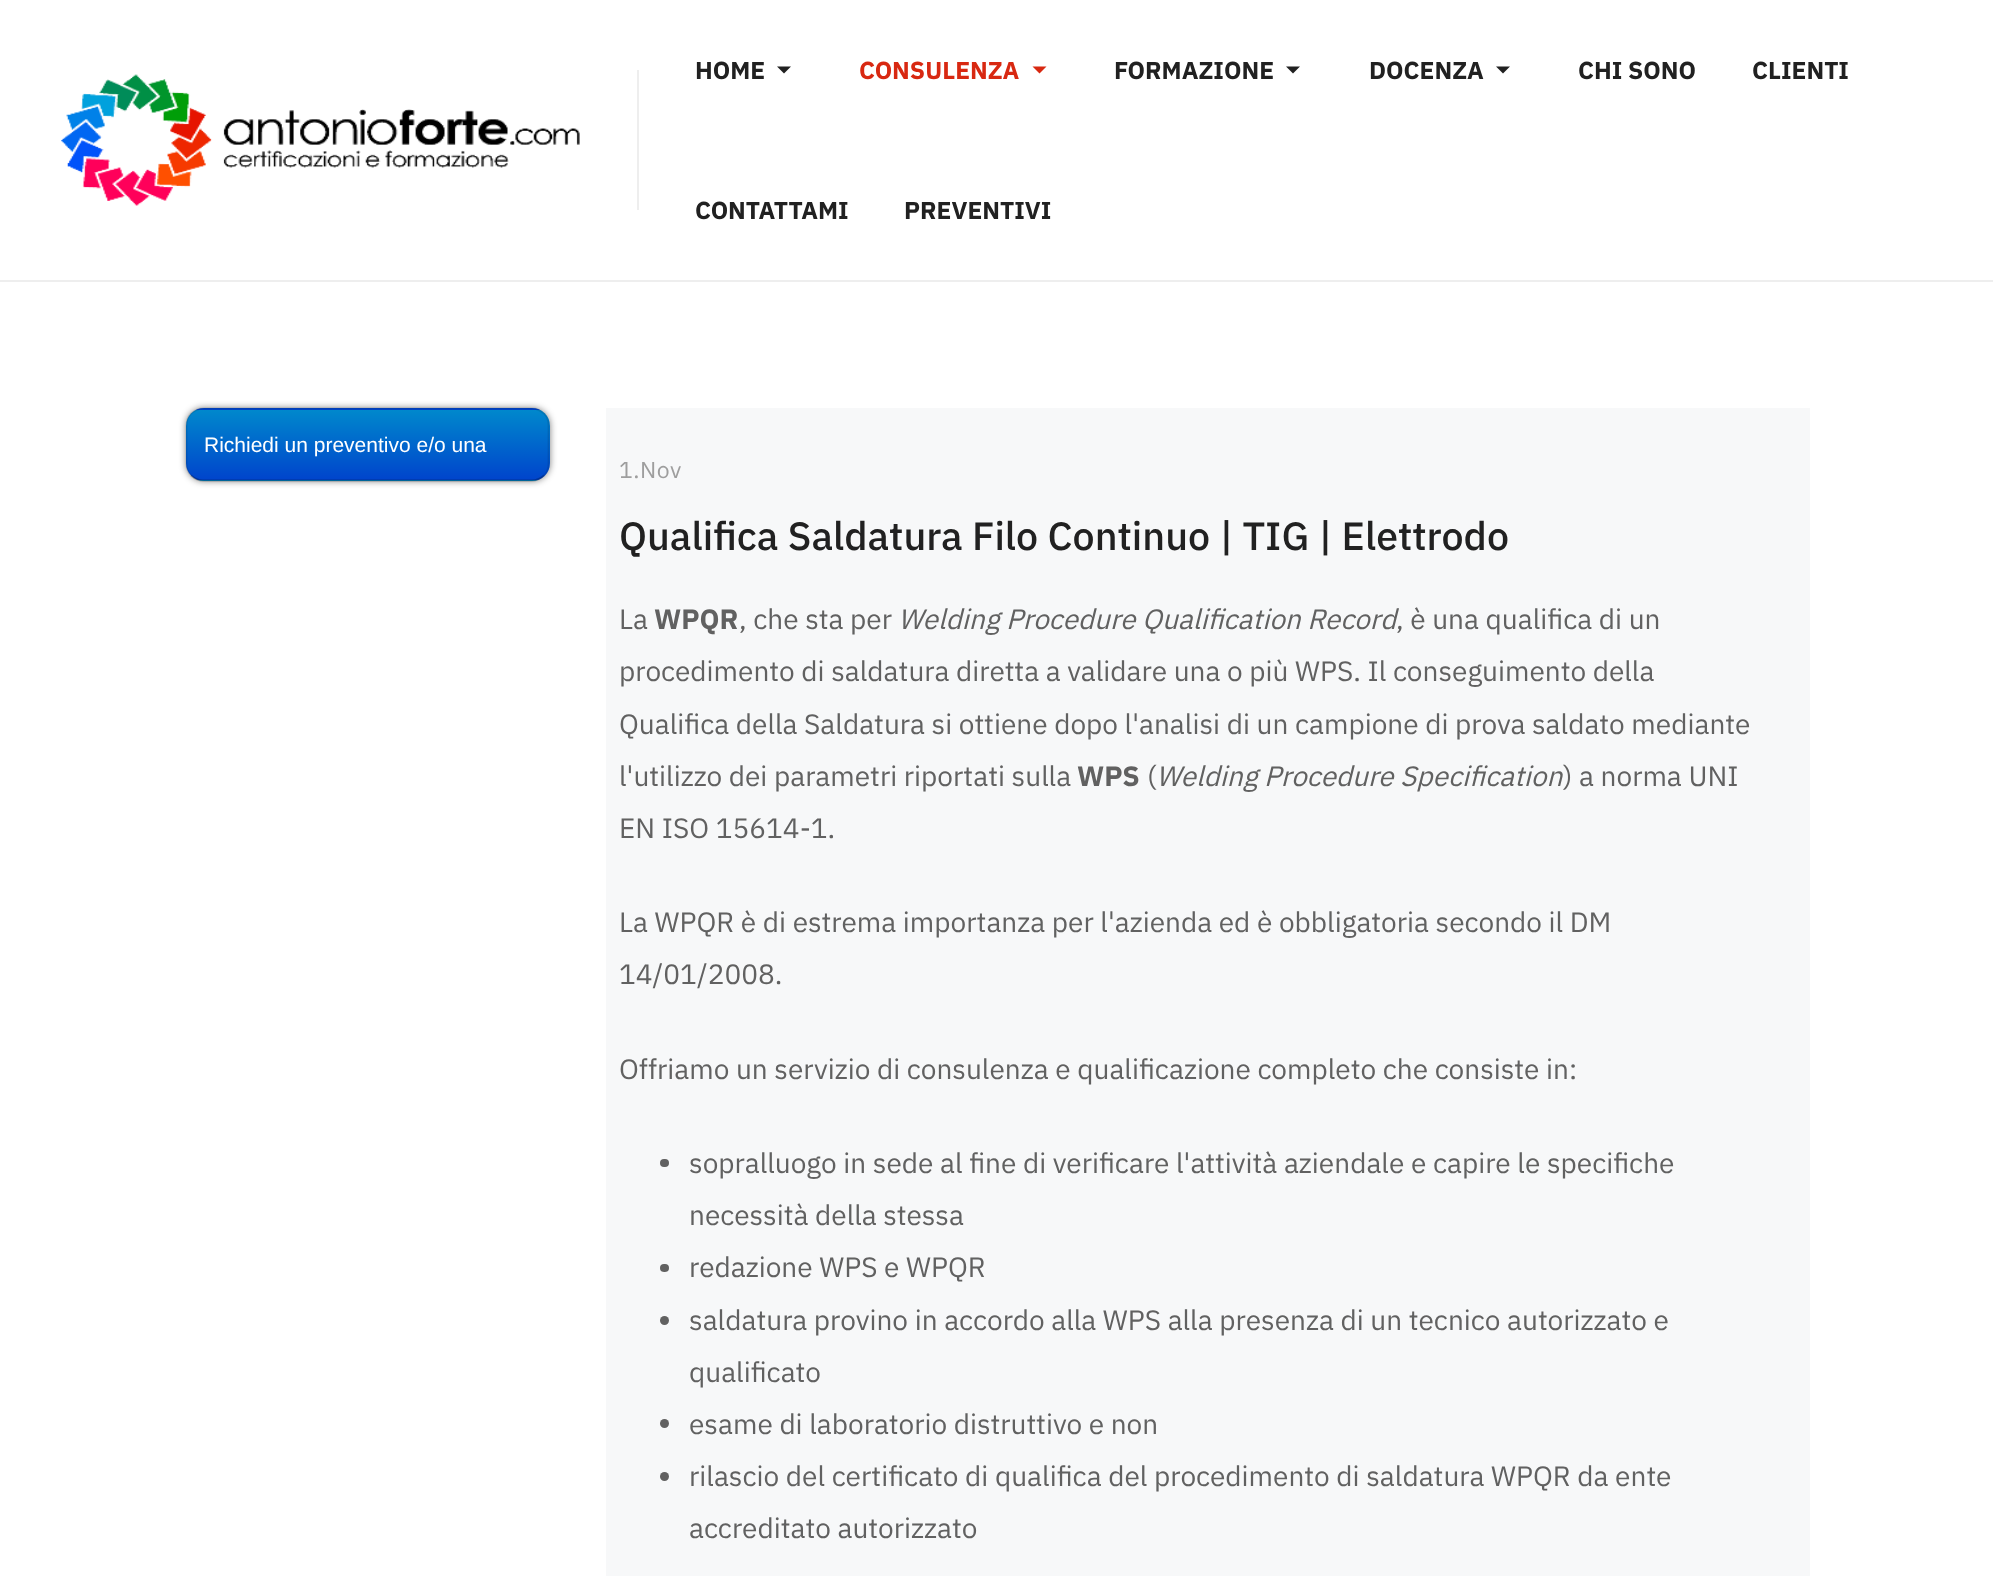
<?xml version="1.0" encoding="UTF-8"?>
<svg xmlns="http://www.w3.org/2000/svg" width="1993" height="1576">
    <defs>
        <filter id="blur1" x="-50%" y="-200%" width="200%" height="500%"><feGaussianBlur stdDeviation="3.5"/></filter>
        <clipPath id="clip1"><rect x="186" y="408" width="364" height="73" rx="18"/></clipPath>
        <linearGradient id="g1" gradientUnits="userSpaceOnUse" x1="368" y1="340" x2="368" y2="410"><stop offset="0" stop-color="#0088CC"/><stop offset="1" stop-color="#0044CC"/></linearGradient>
        <linearGradient id="g2" gradientUnits="userSpaceOnUse" x1="368" y1="410" x2="368" y2="480"><stop offset="0" stop-color="#0088CC"/><stop offset="1" stop-color="#0044CC"/></linearGradient>
        <linearGradient id="g3" gradientUnits="userSpaceOnUse" x1="368" y1="480" x2="368" y2="550"><stop offset="0" stop-color="#0088CC"/><stop offset="1" stop-color="#0044CC"/></linearGradient>
    </defs>
    <rect width="100%" height="100%" fill="#FFFFFF"/>
    <rect x="0" y="280" width="1993" height="2" fill="#EEEEEE"/>
    <rect x="637" y="70" width="2" height="140" fill="#EEEEEE"/>
    <image x="61" y="74" width="519" height="132" href="img_01.png"/>
    <text x="695" y="79" font-family="IBM Plex Sans" font-size="24.5" font-weight="700" fill="#212121">HOME</text>
    <path d="M 777 66.5 H 791 L 784 73.5 Z" fill="#212121"/>
    <text x="859" y="79" font-family="IBM Plex Sans" font-size="24.5" font-weight="700" fill="#D82811">CONSULENZA</text>
    <path d="M 1032.5 66.5 H 1046.5 L 1039.5 73.5 Z" fill="#D82811"/>
    <text x="1114" y="79" font-family="IBM Plex Sans" font-size="24.5" font-weight="700" fill="#212121">FORMAZIONE</text>
    <path d="M 1286 66.5 H 1300 L 1293 73.5 Z" fill="#212121"/>
    <text x="1369" y="79" font-family="IBM Plex Sans" font-size="24.5" font-weight="700" fill="#212121">DOCENZA</text>
    <path d="M 1496 66.5 H 1510 L 1503 73.5 Z" fill="#212121"/>
    <text x="1578" y="79" font-family="IBM Plex Sans" font-size="24.5" font-weight="700" fill="#212121">CHI SONO</text>
    <text x="1752" y="79" font-family="IBM Plex Sans" font-size="24.5" font-weight="700" fill="#212121">CLIENTI</text>
    <text x="695" y="219" font-family="IBM Plex Sans" font-size="24.5" font-weight="700" fill="#212121">CONTATTAMI</text>
    <text x="904" y="219" font-family="IBM Plex Sans" font-size="24.5" font-weight="700" fill="#212121">PREVENTIVI</text>
    <rect x="186" y="408" width="364" height="73" rx="18" fill="#000000" fill-opacity="0.5" filter="url(#blur1)"/>
    <g clip-path="url(#clip1)">
        <rect x="196" y="408" width="344" height="2" fill="url(#g1)"/>
        <rect x="186" y="410" width="364" height="70" fill="url(#g2)"/>
        <rect x="198" y="480" width="340" height="1" fill="url(#g3)"/>
    </g>
    <path d="M 544 475.5 C 540.5 478.5 536.5 480.5 532 480.5 H 203 C 198.5 480.5 194.5 478.5 191 475.5" fill="none" stroke="#000000" stroke-opacity="0.25" stroke-width="1.8"/>
    <path d="M 191 475.5 C 188 472.5 186.5 468 186.5 464 V 425 C 186.5 421 188 416.5 191 413.5 C 194.5 410.5 198.5 408.5 203 408.5 H 532 C 536.5 408.5 540.5 410.5 544 413.5 C 547 416.5 548.5 421 548.5 425 V 464 C 548.5 468 547 472.5 544 475.5" fill="none" stroke="#000000" stroke-opacity="0.1" stroke-width="1.8"/>
    <text x="204" y="452" font-family="Liberation Sans" font-size="21" fill="#FFFFFF">Richiedi un preventivo e/o una</text>
    <rect x="606" y="408" width="1204" height="1168" fill="#F7F8F9"/>
    <text x="619" y="478" font-family="IBM Plex Sans" font-size="23" letter-spacing="0.5" fill="#9E9E9E">1.Nov</text>
    <text x="619" y="550" font-family="IBM Plex Sans" font-size="39.4" font-weight="500" fill="#212121">Qualifica Saldatura Filo Continuo | TIG | Elettrodo</text>
    <text x="619" y="629" font-family="IBM Plex Sans" font-size="28" fill="#616161">La</text>
    <text x="654" y="629" font-family="IBM Plex Sans" font-size="28" font-weight="700" fill="#616161">WPQR</text>
    <text x="739" y="629" font-family="IBM Plex Sans" font-size="28" fill="#616161">, che sta per</text>
    <text x="898" y="629" font-family="IBM Plex Sans" font-size="28" font-style="italic" fill="#616161">Welding Procedure Qualification Record</text>
    <text x="1396" y="629" font-family="IBM Plex Sans" font-size="28" fill="#616161">, è una qualifica di un</text>
    <text font-family="IBM Plex Sans" font-size="28" fill="#616161">
        <tspan x="619" y="681">procedimento di saldatura diretta a validare una o più WPS. Il conseguimento della</tspan>
        <tspan x="619" y="734">Qualifica della Saldatura si ottiene dopo l'analisi di un campione di prova saldato mediante</tspan>
        <tspan x="619" y="786">l'utilizzo dei parametri riportati sulla</tspan>
    </text>
    <text x="1077" y="786" font-family="IBM Plex Sans" font-size="28" font-weight="700" fill="#616161">WPS</text>
    <text x="1147" y="786" font-family="IBM Plex Sans" font-size="28" fill="#616161">(</text>
    <text x="1156" y="786" font-family="IBM Plex Sans" font-size="28" font-style="italic" fill="#616161">Welding Procedure Specification</text>
    <text x="1563" y="786" font-family="IBM Plex Sans" font-size="28" fill="#616161">) a norma UNI</text>
    <text x="619" y="838" font-family="IBM Plex Sans" font-size="28" fill="#616161">EN ISO 15614-1.</text>
    <text font-family="IBM Plex Sans" font-size="28" fill="#616161">
        <tspan x="619" y="932">La WPQR è di estrema importanza per l'azienda ed è obbligatoria secondo il DM</tspan>
        <tspan x="619" y="984">14/01/2008.</tspan>
    </text>
    <text x="619" y="1079" font-family="IBM Plex Sans" font-size="28" fill="#616161">Offriamo un servizio di consulenza e qualificazione completo che consiste in:</text>
    <rect x="660" y="1159" width="9" height="8" rx="4" fill="#616161"/>
    <text font-family="IBM Plex Sans" font-size="28" fill="#616161">
        <tspan x="689" y="1173">sopralluogo in sede al fine di verificare l'attività aziendale e capire le specifiche</tspan>
        <tspan x="689" y="1225">necessità della stessa</tspan>
    </text>
    <rect x="660" y="1264" width="9" height="8" rx="4" fill="#616161"/>
    <text x="689" y="1277" font-family="IBM Plex Sans" font-size="28" fill="#616161">redazione WPS e WPQR</text>
    <circle cx="664.5" cy="1320.5" r="4.5" fill="#616161"/>
    <text font-family="IBM Plex Sans" font-size="28" fill="#616161">
        <tspan x="689" y="1330">saldatura provino in accordo alla WPS alla presenza di un tecnico autorizzato e</tspan>
        <tspan x="689" y="1382">qualificato</tspan>
    </text>
    <circle cx="664.5" cy="1423.5" r="4.5" fill="#616161"/>
    <text x="689" y="1434" font-family="IBM Plex Sans" font-size="28" fill="#616161">esame di laboratorio distruttivo e non</text>
    <circle cx="664.5" cy="1476.5" r="4.5" fill="#616161"/>
    <text font-family="IBM Plex Sans" font-size="28" fill="#616161">
        <tspan x="689" y="1486">rilascio del certificato di qualifica del procedimento di saldatura WPQR da ente</tspan>
        <tspan x="689" y="1538">accreditato autorizzato</tspan>
    </text>
</svg>
